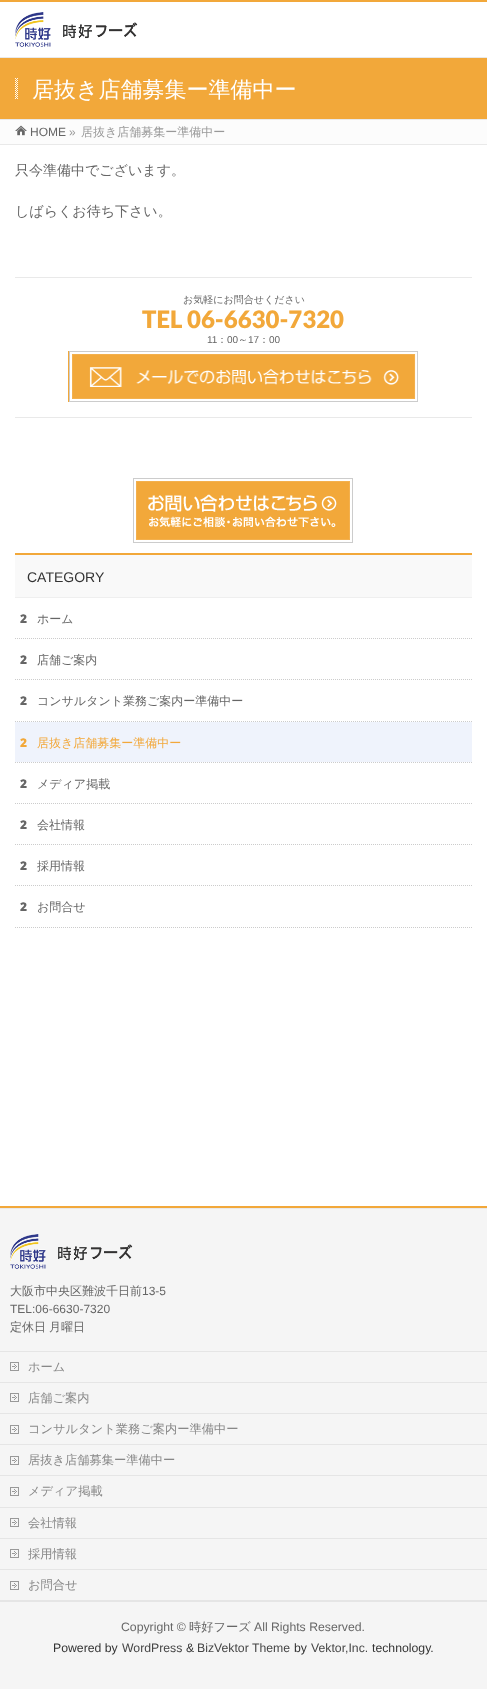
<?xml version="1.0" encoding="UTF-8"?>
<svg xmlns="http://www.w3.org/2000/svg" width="487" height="1691">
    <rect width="100%" height="100%" fill="#FFFFFF"/>
    <rect x="0" y="0" width="487" height="2" fill="#F2A83A"/>
    <image x="15" y="12" width="123" height="35" href="img_01.png"/>
    <rect x="0" y="58" width="487" height="61" fill="#F2A83A"/>
    <rect x="0" y="57" width="487" height="1" fill="#E9E9E9"/>
    <rect x="0" y="119" width="487" height="1" fill="#E9E9E9"/>
    <image x="15" y="78" width="3" height="21" href="img_02.png"/>
    <text x="32" y="97" font-family="WenQuanYi Zen Hei" font-size="22" font-weight="500" fill="#FFFFFF">居抜き店舗募集ー準備中ー</text>
    <rect x="0" y="120" width="487" height="24" fill="#FCFCFC"/>
    <image x="15" y="125" width="12" height="11" href="img_03.png"/>
    <text x="30" y="136" font-family="Liberation Sans" font-size="12" fill="#666666">HOME</text>
    <text x="69" y="136" font-family="Liberation Sans" font-size="12" fill="#999999">»</text>
    <text x="81" y="136" font-family="WenQuanYi Zen Hei" font-size="12" font-weight="500" fill="#999999">居抜き店舗募集ー準備中ー</text>
    <rect x="0" y="144" width="487" height="1" fill="#E9E9E9"/>
    <text x="15" y="175" font-family="WenQuanYi Zen Hei" font-size="14" font-weight="500" fill="#666666">只今準備中でございます。</text>
    <text x="15" y="216" font-family="WenQuanYi Zen Hei" font-size="14" font-weight="500" fill="#666666">しばらくお待ち下さい。</text>
    <rect x="15" y="277" width="457" height="1" fill="#E9E9E9"/>
    <rect x="15" y="417" width="457" height="1" fill="#E9E9E9"/>
    <text x="183" y="303" font-family="WenQuanYi Zen Hei" font-size="10" font-weight="500" fill="#666666">お気軽にお問合せください</text>
    <text x="142" y="328" font-family="Lato" font-size="24" font-weight="900" fill="#F2A83A">TEL 06-6630-7320</text>
    <text x="207" y="343" font-family="Liberation Sans" font-size="10" fill="#666666">11</text>
    <text x="217" y="343" font-family="WenQuanYi Zen Hei" font-size="10" font-weight="500" fill="#666666">：</text>
    <text x="227" y="343" font-family="Liberation Sans" font-size="10" fill="#666666">00</text>
    <text x="238" y="343" font-family="WenQuanYi Zen Hei" font-size="10" font-weight="500" fill="#666666">～</text>
    <text x="248" y="343" font-family="Liberation Sans" font-size="10" fill="#666666">17</text>
    <text x="259" y="343" font-family="WenQuanYi Zen Hei" font-size="10" font-weight="500" fill="#666666">：</text>
    <text x="269" y="343" font-family="Liberation Sans" font-size="10" fill="#666666">00</text>
    <rect x="68" y="351" width="348" height="51" fill="#F2A83A"/>
    <image x="69" y="351" width="349" height="51" href="img_04.png"/>
    <rect x="136" y="481" width="214" height="59" fill="#F2A83A"/>
    <image x="133" y="478" width="220" height="65" href="img_05.png"/>
    <rect x="15" y="555" width="457" height="42" fill="#F9F9F9"/>
    <rect x="15" y="553" width="457" height="2" fill="#F2A83A"/>
    <rect x="15" y="597" width="457" height="1" fill="#EFEFEF"/>
    <text x="27" y="582" font-family="Liberation Sans" font-size="14" fill="#333333">CATEGORY</text>
    <path d="M 15 638.5 H 472" fill="none" stroke="#CCCCCC" stroke-dasharray="1 1"/>
    <text x="20" y="623" font-family="Noto Sans" font-size="12" font-weight="900" fill="#666666">2</text>
    <text x="37" y="623" font-family="WenQuanYi Zen Hei" font-size="12" font-weight="500" fill="#666666">ホーム</text>
    <path d="M 15 679.5 H 472" fill="none" stroke="#CCCCCC" stroke-dasharray="1 1"/>
    <text x="20" y="664" font-family="Noto Sans" font-size="12" font-weight="900" fill="#666666">2</text>
    <text x="37" y="664" font-family="WenQuanYi Zen Hei" font-size="12" font-weight="500" fill="#666666">店舗ご案内</text>
    <path d="M 15 721.5 H 472" fill="none" stroke="#CCCCCC" stroke-dasharray="1 1"/>
    <text x="20" y="705" font-family="Noto Sans" font-size="12" font-weight="900" fill="#666666">2</text>
    <text x="37" y="705" font-family="WenQuanYi Zen Hei" font-size="12" font-weight="500" fill="#666666">コンサルタント業務ご案内ー準備中ー</text>
    <path d="M 15 762.5 H 472" fill="none" stroke="#CCCCCC" stroke-dasharray="1 1"/>
    <rect x="15" y="722" width="457" height="40" fill="#EFF3FC"/>
    <text x="20" y="747" font-family="Noto Sans" font-size="12" font-weight="900" fill="#F2A83A">2</text>
    <text x="37" y="747" font-family="WenQuanYi Zen Hei" font-size="12" font-weight="500" fill="#F2A83A">居抜き店舗募集ー準備中ー</text>
    <path d="M 15 803.5 H 472" fill="none" stroke="#CCCCCC" stroke-dasharray="1 1"/>
    <text x="20" y="788" font-family="Noto Sans" font-size="12" font-weight="900" fill="#666666">2</text>
    <text x="37" y="788" font-family="WenQuanYi Zen Hei" font-size="12" font-weight="500" fill="#666666">メディア掲載</text>
    <path d="M 15 844.5 H 472" fill="none" stroke="#CCCCCC" stroke-dasharray="1 1"/>
    <text x="20" y="829" font-family="Noto Sans" font-size="12" font-weight="900" fill="#666666">2</text>
    <text x="37" y="829" font-family="WenQuanYi Zen Hei" font-size="12" font-weight="500" fill="#666666">会社情報</text>
    <path d="M 15 885.5 H 472" fill="none" stroke="#CCCCCC" stroke-dasharray="1 1"/>
    <text x="20" y="870" font-family="Noto Sans" font-size="12" font-weight="900" fill="#666666">2</text>
    <text x="37" y="870" font-family="WenQuanYi Zen Hei" font-size="12" font-weight="500" fill="#666666">採用情報</text>
    <path d="M 15 927.5 H 472" fill="none" stroke="#CCCCCC" stroke-dasharray="1 1"/>
    <text x="20" y="911" font-family="Noto Sans" font-size="12" font-weight="900" fill="#666666">2</text>
    <text x="37" y="911" font-family="WenQuanYi Zen Hei" font-size="12" font-weight="500" fill="#666666">お問合せ</text>
    <rect x="0" y="1206" width="487" height="2" fill="#F2A83A"/>
    <rect x="0" y="1208" width="487" height="1" fill="#E9E9E9"/>
    <rect x="0" y="1209" width="487" height="391" fill="#F5F5F5"/>
    <image x="10" y="1234" width="123" height="35" href="img_06.png"/>
    <text x="10" y="1295" font-family="WenQuanYi Zen Hei" font-size="12" font-weight="500" fill="#666666">大阪市中央区難波千日前</text>
    <text x="142" y="1295" font-family="Liberation Sans" font-size="12" fill="#666666">13-5</text>
    <text x="10" y="1313" font-family="Liberation Sans" font-size="12" fill="#666666">TEL:06-6630-7320</text>
    <text x="10" y="1331" font-family="WenQuanYi Zen Hei" font-size="12" font-weight="500" fill="#666666">定休日</text>
    <text x="49" y="1331" font-family="WenQuanYi Zen Hei" font-size="12" font-weight="500" fill="#666666">月曜日</text>
    <rect x="0" y="1351" width="487" height="1" fill="#E5E5E5"/>
    <image x="10" y="1362" width="9" height="9" href="img_07.png"/>
    <rect x="0" y="1382" width="487" height="1" fill="#E5E5E5"/>
    <text x="28" y="1371" font-family="WenQuanYi Zen Hei" font-size="12.25" font-weight="500" fill="#888888">ホーム</text>
    <image x="10" y="1393" width="9" height="9" href="img_07.png"/>
    <rect x="0" y="1413" width="487" height="1" fill="#E5E5E5"/>
    <text x="28" y="1402" font-family="WenQuanYi Zen Hei" font-size="12.25" font-weight="500" fill="#888888">店舗ご案内</text>
    <image x="10" y="1425" width="9" height="9" href="img_07.png"/>
    <rect x="0" y="1444" width="487" height="1" fill="#E5E5E5"/>
    <text x="28" y="1433" font-family="WenQuanYi Zen Hei" font-size="12.25" font-weight="500" fill="#888888">コンサルタント業務ご案内ー準備中ー</text>
    <image x="10" y="1456" width="9" height="9" href="img_07.png"/>
    <rect x="0" y="1475" width="487" height="1" fill="#E5E5E5"/>
    <text x="28" y="1464" font-family="WenQuanYi Zen Hei" font-size="12.25" font-weight="500" fill="#888888">居抜き店舗募集ー準備中ー</text>
    <image x="10" y="1487" width="9" height="9" href="img_07.png"/>
    <rect x="0" y="1507" width="487" height="1" fill="#E5E5E5"/>
    <text x="28" y="1495" font-family="WenQuanYi Zen Hei" font-size="12.25" font-weight="500" fill="#888888">メディア掲載</text>
    <image x="10" y="1518" width="9" height="9" href="img_07.png"/>
    <rect x="0" y="1538" width="487" height="1" fill="#E5E5E5"/>
    <text x="28" y="1527" font-family="WenQuanYi Zen Hei" font-size="12.25" font-weight="500" fill="#888888">会社情報</text>
    <image x="10" y="1549" width="9" height="9" href="img_07.png"/>
    <rect x="0" y="1569" width="487" height="1" fill="#E5E5E5"/>
    <text x="28" y="1558" font-family="WenQuanYi Zen Hei" font-size="12.25" font-weight="500" fill="#888888">採用情報</text>
    <image x="10" y="1581" width="9" height="9" href="img_07.png"/>
    <text x="28" y="1589" font-family="WenQuanYi Zen Hei" font-size="12.25" font-weight="500" fill="#888888">お問合せ</text>
    <rect x="0" y="1602" width="487" height="87" fill="#F5F5F5"/>
    <rect x="0" y="1600" width="487" height="2" fill="#E5E5E5"/>
    <text x="121" y="1631" font-family="Liberation Sans" font-size="12.25" fill="#666666">Copyright ©</text>
    <text x="189" y="1631" font-family="WenQuanYi Zen Hei" font-size="12.25" font-weight="500" fill="#666666">時好フーズ</text>
    <text x="254" y="1631" font-family="Liberation Sans" font-size="12.25" fill="#666666">All Rights Reserved.</text>
    <text x="53" y="1652" font-family="Liberation Sans" font-size="12.25" fill="#333333">Powered by</text>
    <text x="122" y="1652" font-family="Liberation Sans" font-size="12.25" fill="#454545">WordPress</text>
    <text x="186" y="1652" font-family="Liberation Sans" font-size="12.25" fill="#333333">&amp;</text>
    <text x="197" y="1652" font-family="Liberation Sans" font-size="12.25" fill="#454545">BizVektor Theme</text>
    <text x="294" y="1652" font-family="Liberation Sans" font-size="12.25" fill="#333333">by</text>
    <text x="311" y="1652" font-family="Liberation Sans" font-size="12.25" fill="#454545">Vektor,Inc.</text>
    <text x="372" y="1652" font-family="Liberation Sans" font-size="12.25" fill="#333333">technology.</text>
</svg>
